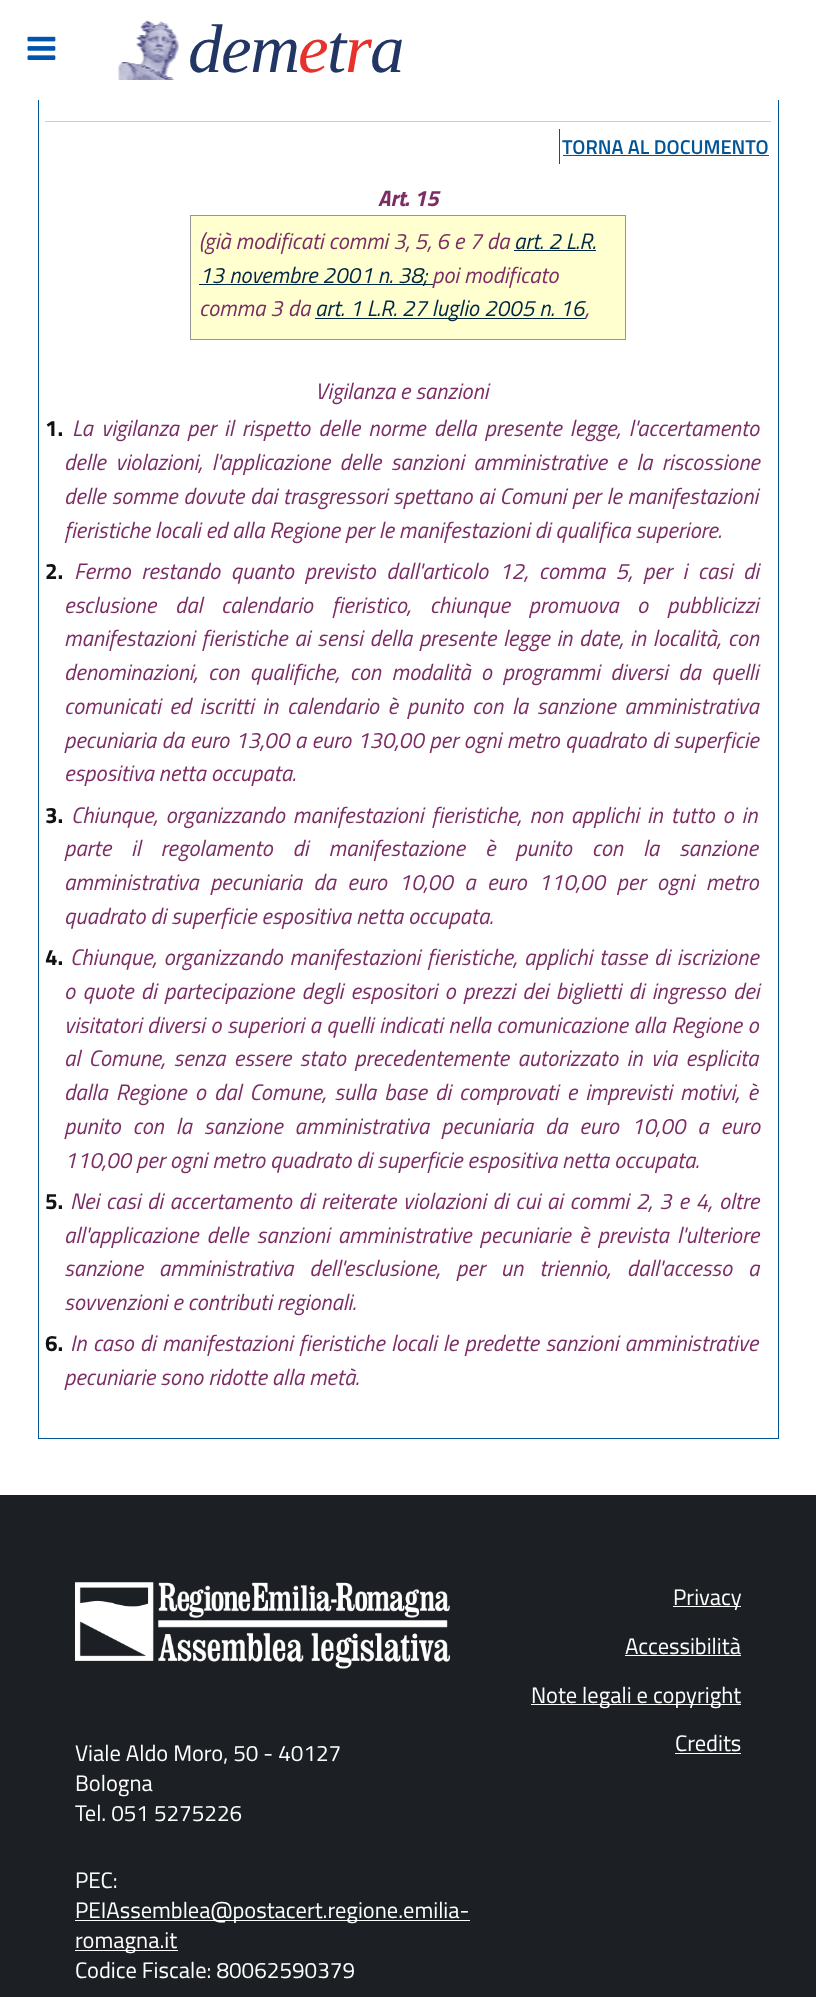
<?xml version="1.0" encoding="UTF-8"?>
<svg xmlns="http://www.w3.org/2000/svg" width="816" height="1997">
    <rect width="100%" height="100%" fill="#FFFFFF"/>
    <rect x="38.5" y="-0.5" width="740" height="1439" fill="none" stroke="#005498"/>
    <rect x="38" y="0" width="741" height="100" fill="#FFFFFF"/>
    <image x="27" y="36" width="29" height="24" href="img_01.png"/>
    <image x="118" y="20" width="61" height="60" href="img_02.png"/>
    <text x="188" y="72" font-family="Liberation Serif" font-size="69" font-style="italic" letter-spacing="-1.5" fill="#223664">dem</text>
    <text x="298" y="72" font-family="Liberation Serif" font-size="69" font-style="italic" letter-spacing="-1.5" fill="#E7312A">e</text>
    <text x="327" y="72" font-family="Liberation Serif" font-size="69" font-style="italic" letter-spacing="-1.5" fill="#223664">t</text>
    <text x="345" y="72" font-family="Liberation Serif" font-size="69" font-style="italic" letter-spacing="-1.5" fill="#E7312A">r</text>
    <text x="370" y="72" font-family="Liberation Serif" font-size="69" font-style="italic" letter-spacing="-1.5" fill="#223664">a</text>
    <rect x="45" y="121" width="726" height="1" fill="#CCCCCC"/>
    <rect x="559" y="129" width="1" height="35" fill="#005498"/>
    <text x="562" y="154" font-family="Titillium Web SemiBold" font-size="20" font-weight="600" fill="#005498">TORNA AL DOCUMENTO</text>
    <rect x="563" y="155" width="206" height="1" fill="#005498"/>
    <text x="378" y="206" font-family="Titillium Web" font-size="22.5" font-weight="700" font-style="italic" fill="#7B2D64">Art. 15</text>
    <rect x="190.5" y="215.5" width="435" height="124" fill="#FFFFCF" stroke="#969696"/>
    <text x="199" y="249" font-family="Titillium Web" font-size="22.5" font-style="italic" fill="#7B2D64">(già modificati commi 3, 5, 6 e 7 da</text>
    <text x="514" y="249" font-family="Titillium Web" font-size="22.5" font-style="italic" fill="#002843">art. 2 L.R.</text>
    <rect x="514" y="250" width="82" height="1" fill="#002843"/>
    <rect x="199" y="284" width="234" height="1" fill="#002843"/>
    <text x="199" y="283" font-family="Titillium Web" font-size="22.5" font-style="italic" fill="#002843">13 novembre 2001 n. 38;</text>
    <text x="432" y="283" font-family="Titillium Web" font-size="22.5" font-style="italic" fill="#7B2D64">poi modificato</text>
    <text x="199" y="316" font-family="Titillium Web" font-size="22.5" font-style="italic" fill="#7B2D64">comma 3 da</text>
    <rect x="315" y="318" width="270" height="1" fill="#002843"/>
    <text x="315" y="316" font-family="Titillium Web" font-size="22.5" font-style="italic" fill="#002843">art. 1 L.R. 27 luglio 2005 n. 16</text>
    <text x="585" y="316" font-family="Titillium Web" font-size="22.5" font-style="italic" fill="#7B2D64">,</text>
    <text x="315" y="399" font-family="Titillium Web" font-size="22.5" font-style="italic" fill="#7B2D64">Vigilanza e sanzioni</text>
    <text x="45" y="436" font-family="Titillium Web" font-size="22.5" font-weight="700" fill="#111111">1.</text>
    <text x="72" y="436" word-spacing="3.25" font-family="Titillium Web" font-size="22.5" font-style="italic" fill="#7B2D64">La vigilanza per il rispetto delle norme della presente legge, l'accertamento</text>
    <text font-family="Titillium Web" font-size="22.5" font-style="italic" fill="#7B2D64">
        <tspan x="64" y="470" word-spacing="4.5">delle violazioni, l'applicazione delle sanzioni amministrative e la riscossione</tspan>
        <tspan x="64" y="504" word-spacing="0.75">delle somme dovute dai trasgressori spettano ai Comuni per le manifestazioni</tspan>
        <tspan x="64" y="538">fieristiche locali ed alla Regione per le manifestazioni di qualifica superiore.</tspan>
    </text>
    <text x="45" y="579" font-family="Titillium Web" font-size="22.5" font-weight="700" fill="#111111">2.</text>
    <text x="74" y="579" word-spacing="5.75" font-family="Titillium Web" font-size="22.5" font-style="italic" fill="#7B2D64">Fermo restando quanto previsto dall'articolo 12, comma 5, per i casi di</text>
    <text font-family="Titillium Web" font-size="22.5" font-style="italic" fill="#7B2D64">
        <tspan x="64" y="613" word-spacing="13.75">esclusione dal calendario fieristico, chiunque promuova o pubblicizzi</tspan>
        <tspan x="64" y="646" word-spacing="1.9">manifestazioni fieristiche ai sensi della presente legge in date, in località, con</tspan>
        <tspan x="64" y="680" word-spacing="5.5">denominazioni, con qualifiche, con modalità o programmi diversi da quelli</tspan>
        <tspan x="64" y="714" word-spacing="3.75">comunicati ed iscritti in calendario è punito con la sanzione amministrativa</tspan>
        <tspan x="64" y="748" word-spacing="0.6">pecuniaria da euro 13,00 a euro 130,00 per ogni metro quadrato di superficie</tspan>
        <tspan x="64" y="781">espositiva netta occupata.</tspan>
    </text>
    <text x="45" y="823" font-family="Titillium Web" font-size="22.5" font-weight="700" fill="#111111">3.</text>
    <text x="71" y="823" word-spacing="3" font-family="Titillium Web" font-size="22.5" font-style="italic" fill="#7B2D64">Chiunque, organizzando manifestazioni fieristiche, non applichi in tutto o in</text>
    <text font-family="Titillium Web" font-size="22.5" font-style="italic" fill="#7B2D64">
        <tspan x="64" y="856" word-spacing="15">parte il regolamento di manifestazione è punito con la sanzione</tspan>
        <tspan x="64" y="890" word-spacing="6.5">amministrativa pecuniaria da euro 10,00 a euro 110,00 per ogni metro</tspan>
        <tspan x="64" y="924">quadrato di superficie espositiva netta occupata.</tspan>
    </text>
    <text x="45" y="965" font-family="Titillium Web" font-size="22.5" font-weight="700" fill="#111111">4.</text>
    <text x="70" y="965" word-spacing="1.9" font-family="Titillium Web" font-size="22.5" font-style="italic" fill="#7B2D64">Chiunque, organizzando manifestazioni fieristiche, applichi tasse di iscrizione</text>
    <text font-family="Titillium Web" font-size="22.5" font-style="italic" fill="#7B2D64">
        <tspan x="64" y="999" word-spacing="2.4">o quote di partecipazione degli espositori o prezzi dei biglietti di ingresso dei</tspan>
        <tspan x="64" y="1033" word-spacing="0.6">visitatori diversi o superiori a quelli indicati nella comunicazione alla Regione o</tspan>
        <tspan x="64" y="1066" word-spacing="3.5">al Comune, senza essere stato precedentemente autorizzato in via esplicita</tspan>
        <tspan x="64" y="1100" word-spacing="3.25">dalla Regione o dal Comune, sulla base di comprovati e imprevisti motivi, è</tspan>
        <tspan x="64" y="1134" word-spacing="7">punito con la sanzione amministrativa pecuniaria da euro 10,00 a euro</tspan>
        <tspan x="64" y="1168">110,00 per ogni metro quadrato di superficie espositiva netta occupata.</tspan>
    </text>
    <text x="45" y="1209" font-family="Titillium Web" font-size="22.5" font-weight="700" fill="#111111">5.</text>
    <text x="70" y="1209" word-spacing="1.75" font-family="Titillium Web" font-size="22.5" font-style="italic" fill="#7B2D64">Nei casi di accertamento di reiterate violazioni di cui ai commi 2, 3 e 4, oltre</text>
    <text font-family="Titillium Web" font-size="22.5" font-style="italic" fill="#7B2D64">
        <tspan x="64" y="1243" word-spacing="3.25">all'applicazione delle sanzioni amministrative pecuniarie è prevista l'ulteriore</tspan>
        <tspan x="64" y="1276" word-spacing="11">sanzione amministrativa dell'esclusione, per un triennio, dall'accesso a</tspan>
        <tspan x="64" y="1310">sovvenzioni e contributi regionali.</tspan>
    </text>
    <text x="45" y="1351" font-family="Titillium Web" font-size="22.5" font-weight="700" fill="#111111">6.</text>
    <text x="70" y="1351" word-spacing="1.25" font-family="Titillium Web" font-size="22.5" font-style="italic" fill="#7B2D64">In caso di manifestazioni fieristiche locali le predette sanzioni amministrative</text>
    <text x="64" y="1385" font-family="Titillium Web" font-size="22.5" font-style="italic" fill="#7B2D64">pecuniarie sono ridotte alla metà.</text>
    <rect x="0" y="1495" width="816" height="502" fill="#1C2024"/>
    <rect x="673" y="1606" width="68" height="1" fill="#FFFFFF"/>
    <text x="673" y="1605" font-family="Titillium Web" font-size="22.5" fill="#FFFFFF">Privacy</text>
    <text x="625" y="1654" font-family="Titillium Web" font-size="22.5" fill="#FFFFFF">Accessibilità</text>
    <rect x="625" y="1655" width="116" height="1" fill="#FFFFFF"/>
    <rect x="531" y="1704" width="210" height="1" fill="#FFFFFF"/>
    <text x="531" y="1703" font-family="Titillium Web" font-size="22.5" fill="#FFFFFF">Note legali e copyright</text>
    <text x="675" y="1751" font-family="Titillium Web" font-size="22.5" fill="#FFFFFF">Credits</text>
    <rect x="675" y="1753" width="66" height="1" fill="#FFFFFF"/>
    <image x="75" y="1582" width="375" height="87" href="img_03.png"/>
    <text font-family="Titillium Web" font-size="22.5" fill="#FFFFFF">
        <tspan x="75" y="1761">Viale Aldo Moro, 50 - 40127</tspan>
        <tspan x="75" y="1791">Bologna</tspan>
        <tspan x="75" y="1821">Tel. 051 5275226</tspan>
    </text>
    <text x="75" y="1888" font-family="Titillium Web" font-size="22.5" fill="#FFFFFF">PEC:</text>
    <rect x="75" y="1920" width="395" height="1" fill="#FFFFFF"/>
    <text x="75" y="1918" font-family="Titillium Web" font-size="22.5" fill="#FFFFFF">PEIAssemblea@postacert.regione.emilia-</text>
    <rect x="75" y="1950" width="103" height="1" fill="#FFFFFF"/>
    <text font-family="Titillium Web" font-size="22.5" fill="#FFFFFF">
        <tspan x="75" y="1948">romagna.it</tspan>
        <tspan x="75" y="1978">Codice Fiscale: 80062590379</tspan>
    </text>
</svg>
